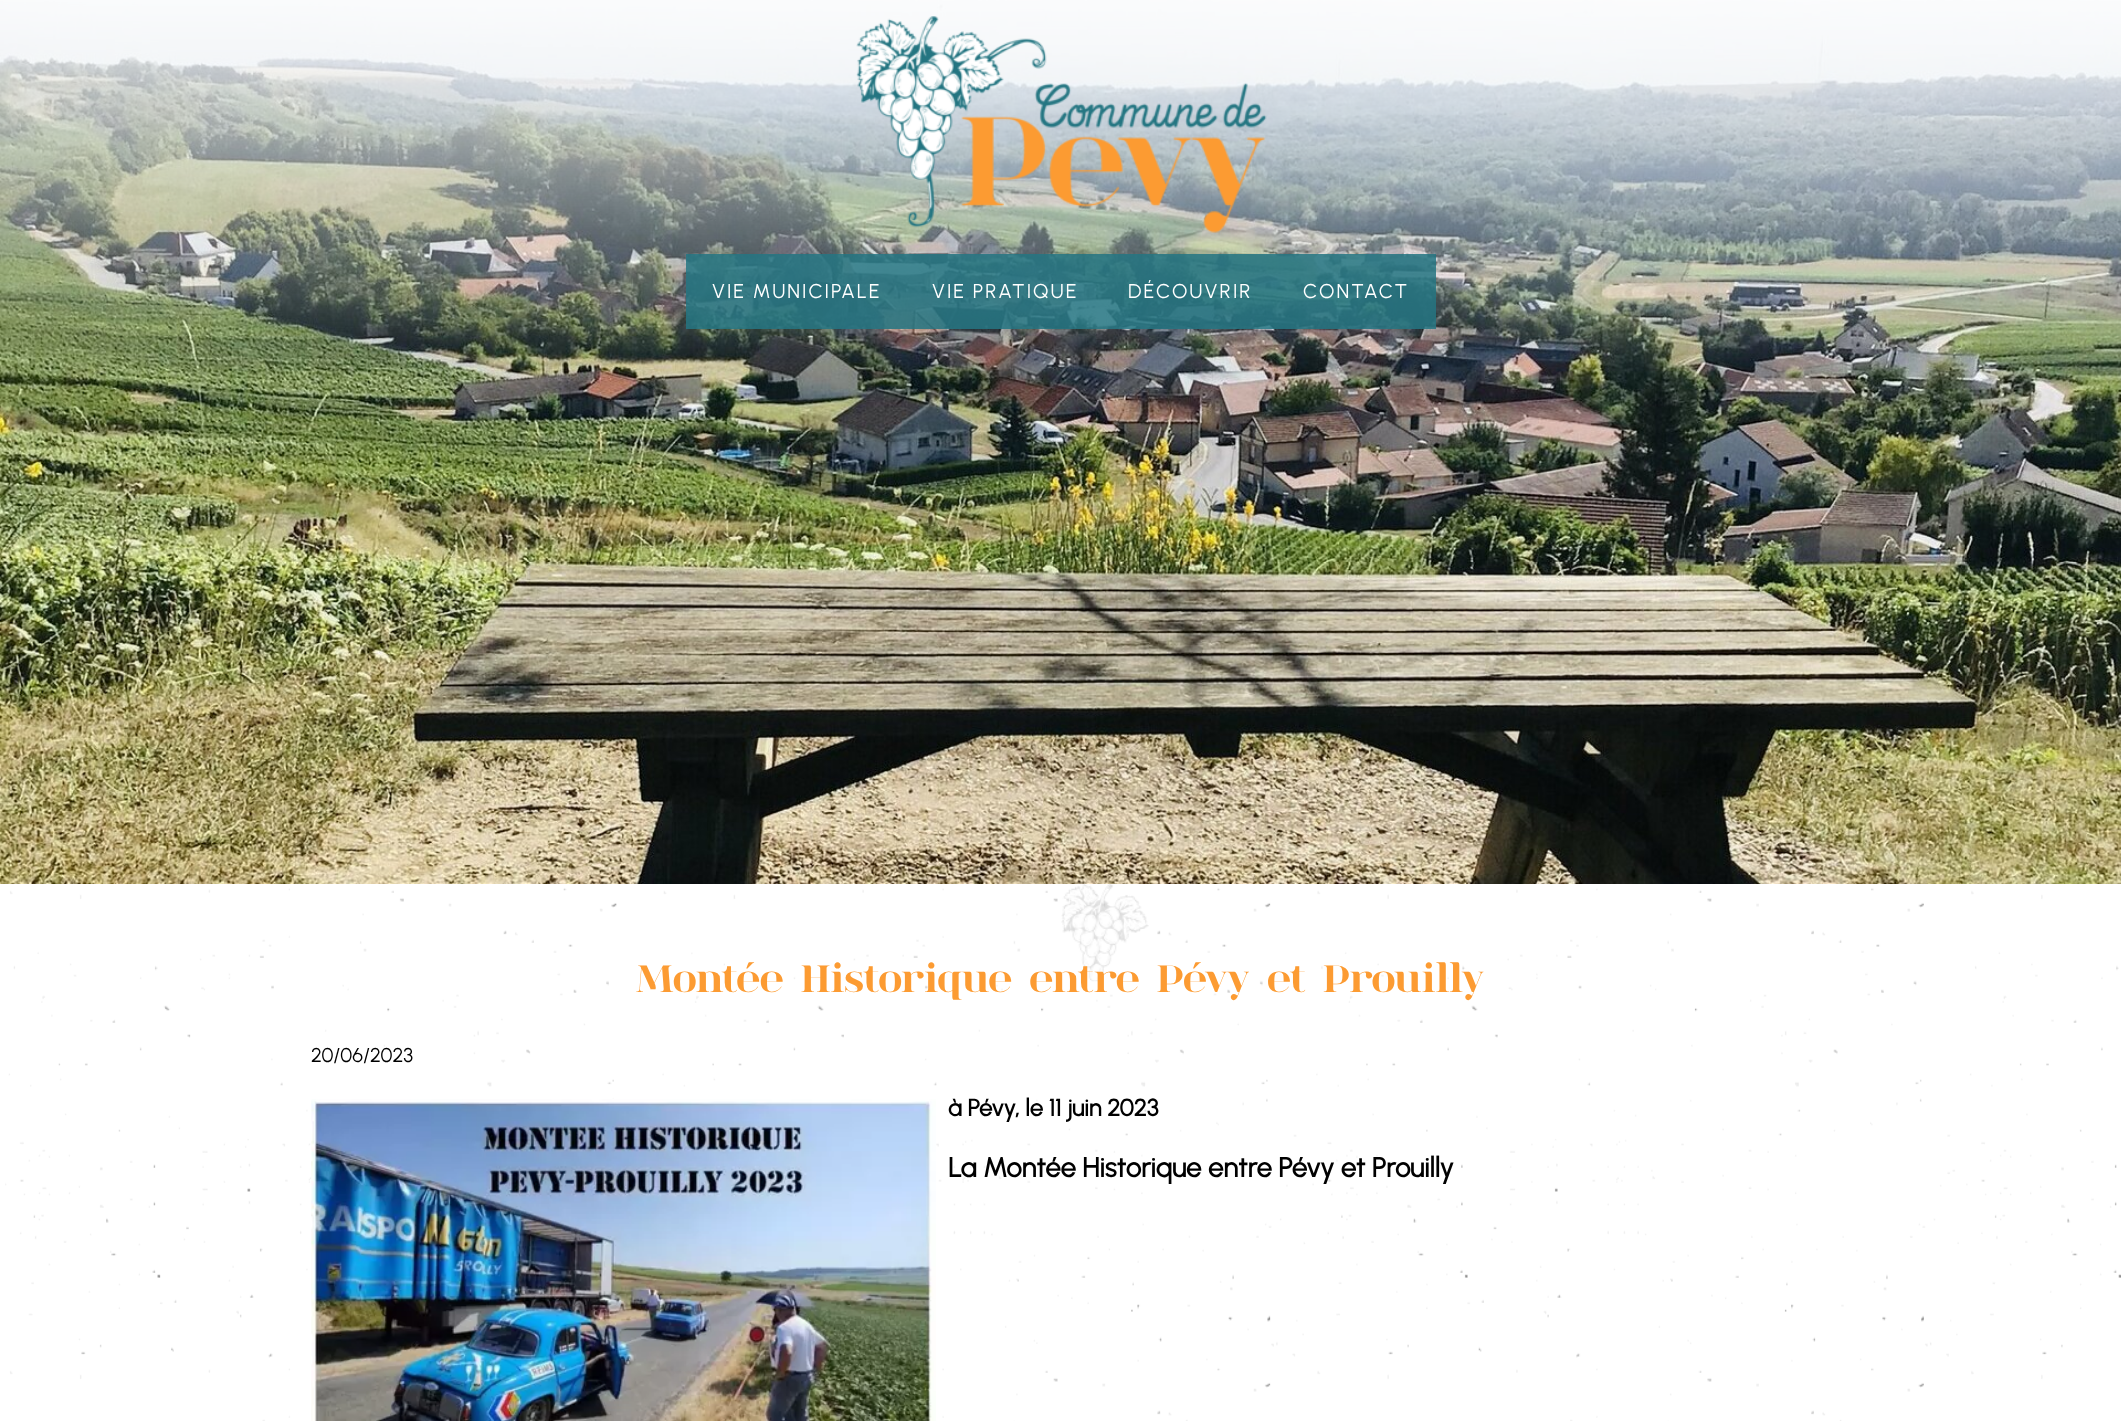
<?xml version="1.0" encoding="UTF-8"?>
<svg xmlns="http://www.w3.org/2000/svg" width="2121" height="1421">
    <rect width="100%" height="100%" fill="#FFFFFF"/>
    <image x="0" y="0" width="2121" height="884" href="img_01.png"/>
    <image x="856" y="16" width="411" height="217" href="img_02.png"/>
    <rect x="686" y="254" width="750" height="75" fill="#257682" fill-opacity="0.86"/>
    <text x="712" y="298" font-family="Urbanist" font-size="20" letter-spacing="2" fill="#FFFFFF">VIE MUNICIPALE</text>
    <text x="932" y="298" font-family="Urbanist" font-size="20" letter-spacing="2" fill="#FFFFFF">VIE PRATIQUE</text>
    <text x="1128" y="298" font-family="Urbanist" font-size="20" letter-spacing="2" fill="#FFFFFF">DÉCOUVRIR</text>
    <text x="1303" y="298" font-family="Urbanist" font-size="20" letter-spacing="2" fill="#FFFFFF">CONTACT</text>
    <image x="1061" y="884" width="88" height="98" href="img_03.png"/>
    <image x="5" y="885" width="2116" height="536" href="img_04.png"/>
    <text x="636" y="992" font-family="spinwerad" font-size="40" font-weight="700" fill="#FC9B32">Montée Historique entre Pévy et Prouilly</text>
    <text x="311" y="1062" font-family="Urbanist" font-size="20" fill="#000000">20/06/2023</text>
    <image x="311" y="1099" width="625" height="322" href="img_05.png"/>
    <text x="948" y="1116" font-family="Urbanist" font-size="23.75" font-weight="700" fill="#000000">à Pévy, le 11 juin 2023</text>
    <text x="948" y="1177" font-family="Urbanist" font-size="27.5" font-weight="700" fill="#000000">La Montée Historique entre Pévy et Prouilly</text>
</svg>
